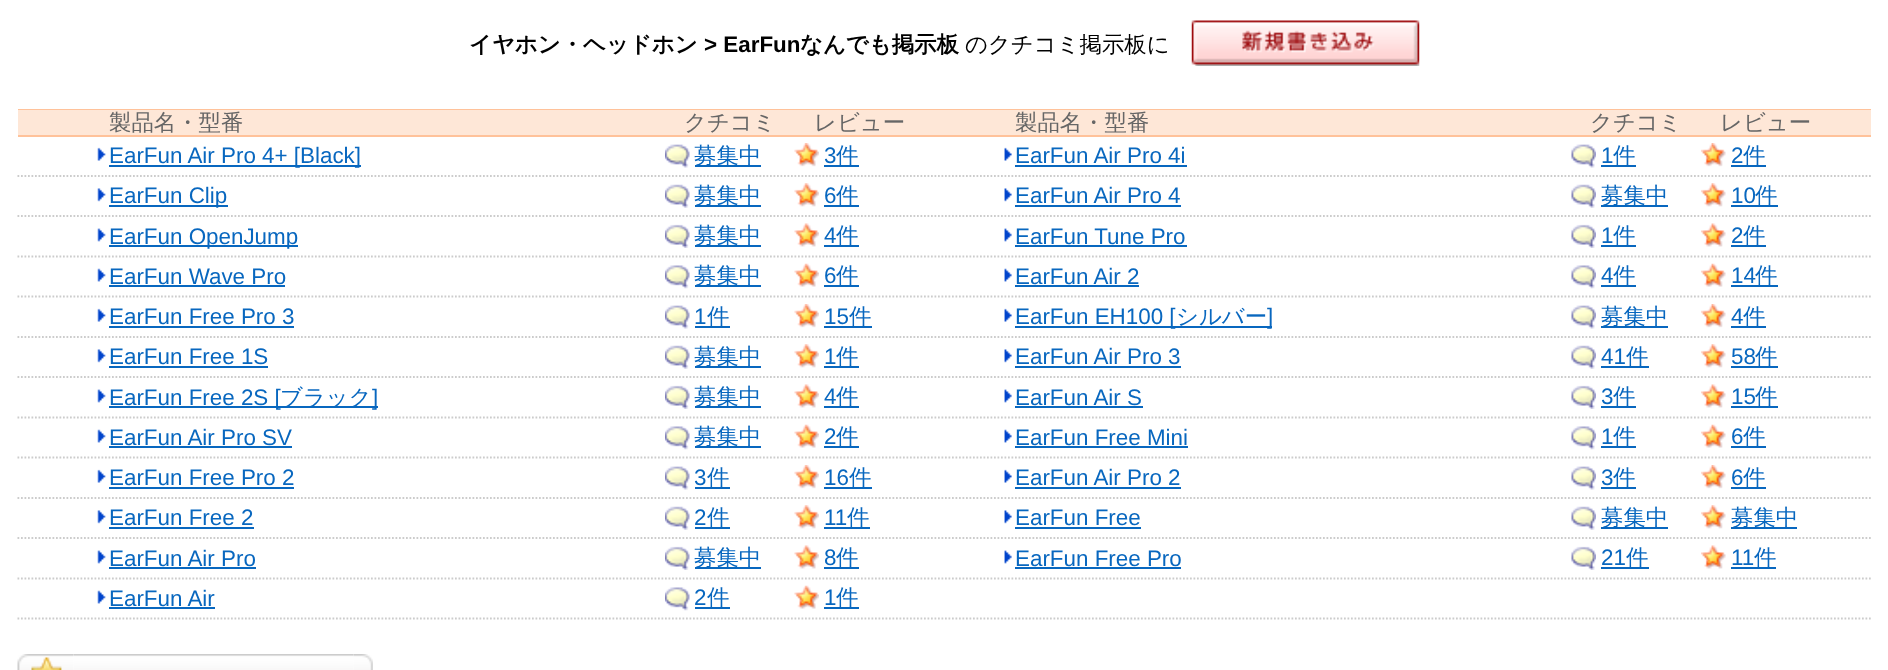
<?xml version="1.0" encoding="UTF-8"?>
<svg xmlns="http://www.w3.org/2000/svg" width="1888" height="670">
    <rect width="100%" height="100%" fill="#FFFFFF"/>
    <text x="469" y="52" font-family="WenQuanYi Zen Hei" font-size="22.4" font-weight="700" fill="#000000">イヤホン・ヘッドホン</text>
    <text x="704" y="52" font-family="Liberation Sans" font-size="22.4" font-weight="700" fill="#000000">&gt; EarFun</text>
    <text x="800" y="52" font-family="WenQuanYi Zen Hei" font-size="22.4" font-weight="700" fill="#000000">なんでも掲示板</text>
    <text x="965" y="52" font-family="WenQuanYi Zen Hei" font-size="22.4" font-weight="500" fill="#000000">のクチコミ掲示板に</text>
    <image x="1191" y="20" width="229" height="46" href="img_01.png"/>
    <rect x="18" y="109" width="1853" height="1" fill="#FFC29A"/>
    <rect x="18" y="110" width="1853" height="25" fill="#FEE7D7"/>
    <text x="109" y="130" font-family="WenQuanYi Zen Hei" font-size="22.4" font-weight="500" fill="#666666">製品名・型番</text>
    <text x="684" y="130" font-family="WenQuanYi Zen Hei" font-size="22.4" font-weight="500" fill="#666666">クチコミ</text>
    <text x="814" y="130" font-family="WenQuanYi Zen Hei" font-size="22.4" font-weight="500" fill="#666666">レビュー</text>
    <text x="1015" y="130" font-family="WenQuanYi Zen Hei" font-size="22.4" font-weight="500" fill="#666666">製品名・型番</text>
    <text x="1590" y="130" font-family="WenQuanYi Zen Hei" font-size="22.4" font-weight="500" fill="#666666">クチコミ</text>
    <text x="1720" y="130" font-family="WenQuanYi Zen Hei" font-size="22.4" font-weight="500" fill="#666666">レビュー</text>
    <rect x="18" y="135" width="1853" height="2" fill="#FFC29A"/>
    <image x="97" y="147" width="9" height="14" href="img_02.png"/>
    <rect x="109" y="165" width="252" height="2" fill="#0867BF"/>
    <text x="109" y="163" font-family="Liberation Sans" font-size="22.4" fill="#0867BF">EarFun Air Pro 4+ [Black]</text>
    <image x="665" y="144" width="25" height="24" href="img_03.png"/>
    <rect x="695" y="165" width="66" height="2" fill="#0867BF"/>
    <text x="694" y="163" font-family="WenQuanYi Zen Hei" font-size="22.4" font-weight="500" fill="#0867BF">募集中</text>
    <image x="794" y="143" width="25" height="24" href="img_04.png"/>
    <text x="824" y="163" font-family="Liberation Sans" font-size="22.4" fill="#0867BF">3</text>
    <rect x="824" y="165" width="35" height="2" fill="#0867BF"/>
    <text x="836" y="163" font-family="WenQuanYi Zen Hei" font-size="22.4" font-weight="500" fill="#0867BF">件</text>
    <image x="1004" y="147" width="8" height="14" href="img_05.png"/>
    <text x="1015" y="163" font-family="Liberation Sans" font-size="22.4" fill="#0867BF">EarFun Air Pro 4i</text>
    <rect x="1015" y="165" width="172" height="2" fill="#0867BF"/>
    <image x="1571" y="144" width="25" height="24" href="img_06.png"/>
    <text x="1601" y="163" font-family="Liberation Sans" font-size="22.4" fill="#0867BF">1</text>
    <rect x="1601" y="165" width="35" height="2" fill="#0867BF"/>
    <text x="1613" y="163" font-family="WenQuanYi Zen Hei" font-size="22.4" font-weight="500" fill="#0867BF">件</text>
    <image x="1701" y="143" width="25" height="24" href="img_07.png"/>
    <text x="1731" y="163" font-family="Liberation Sans" font-size="22.4" fill="#0867BF">2</text>
    <rect x="1731" y="165" width="35" height="2" fill="#0867BF"/>
    <text x="1743" y="163" font-family="WenQuanYi Zen Hei" font-size="22.4" font-weight="500" fill="#0867BF">件</text>
    <path d="M 17.5 176 H 1871" fill="none" stroke="#CCCCCC" stroke-width="1.8" stroke-dasharray="1.75 1.75"/>
    <image x="97" y="188" width="9" height="14" href="img_08.png"/>
    <rect x="109" y="205" width="119" height="2" fill="#0867BF"/>
    <text x="109" y="203" font-family="Liberation Sans" font-size="22.4" fill="#0867BF">EarFun Clip</text>
    <image x="665" y="184" width="25" height="24" href="img_09.png"/>
    <rect x="695" y="205" width="66" height="2" fill="#0867BF"/>
    <text x="694" y="203" font-family="WenQuanYi Zen Hei" font-size="22.4" font-weight="500" fill="#0867BF">募集中</text>
    <image x="794" y="183" width="25" height="24" href="img_10.png"/>
    <text x="824" y="203" font-family="Liberation Sans" font-size="22.4" fill="#0867BF">6</text>
    <rect x="824" y="205" width="35" height="2" fill="#0867BF"/>
    <text x="836" y="203" font-family="WenQuanYi Zen Hei" font-size="22.4" font-weight="500" fill="#0867BF">件</text>
    <image x="1004" y="188" width="8" height="14" href="img_11.png"/>
    <text x="1015" y="203" font-family="Liberation Sans" font-size="22.4" fill="#0867BF">EarFun Air Pro 4</text>
    <rect x="1015" y="205" width="166" height="2" fill="#0867BF"/>
    <image x="1571" y="184" width="25" height="24" href="img_12.png"/>
    <rect x="1601" y="205" width="67" height="2" fill="#0867BF"/>
    <text x="1601" y="203" font-family="WenQuanYi Zen Hei" font-size="22.4" font-weight="500" fill="#0867BF">募集中</text>
    <image x="1701" y="183" width="25" height="24" href="img_13.png"/>
    <text x="1731" y="203" font-family="Liberation Sans" font-size="22.4" fill="#0867BF">10</text>
    <rect x="1731" y="205" width="47" height="2" fill="#0867BF"/>
    <text x="1755" y="203" font-family="WenQuanYi Zen Hei" font-size="22.4" font-weight="500" fill="#0867BF">件</text>
    <path d="M 17.5 216 H 1871" fill="none" stroke="#CCCCCC" stroke-width="1.8" stroke-dasharray="1.75 1.75"/>
    <image x="97" y="228" width="9" height="14" href="img_14.png"/>
    <rect x="109" y="245" width="189" height="2" fill="#0867BF"/>
    <text x="109" y="244" font-family="Liberation Sans" font-size="22.4" fill="#0867BF">EarFun OpenJump</text>
    <image x="665" y="224" width="25" height="24" href="img_15.png"/>
    <rect x="695" y="245" width="66" height="2" fill="#0867BF"/>
    <text x="694" y="243" font-family="WenQuanYi Zen Hei" font-size="22.4" font-weight="500" fill="#0867BF">募集中</text>
    <image x="794" y="223" width="25" height="24" href="img_16.png"/>
    <text x="824" y="243" font-family="Liberation Sans" font-size="22.4" fill="#0867BF">4</text>
    <rect x="824" y="245" width="35" height="2" fill="#0867BF"/>
    <text x="836" y="243" font-family="WenQuanYi Zen Hei" font-size="22.4" font-weight="500" fill="#0867BF">件</text>
    <image x="1004" y="228" width="8" height="14" href="img_17.png"/>
    <text x="1015" y="244" font-family="Liberation Sans" font-size="22.4" fill="#0867BF">EarFun Tune Pro</text>
    <rect x="1015" y="245" width="172" height="2" fill="#0867BF"/>
    <image x="1571" y="224" width="25" height="24" href="img_18.png"/>
    <text x="1601" y="243" font-family="Liberation Sans" font-size="22.4" fill="#0867BF">1</text>
    <rect x="1601" y="245" width="35" height="2" fill="#0867BF"/>
    <text x="1613" y="243" font-family="WenQuanYi Zen Hei" font-size="22.4" font-weight="500" fill="#0867BF">件</text>
    <image x="1701" y="223" width="25" height="24" href="img_19.png"/>
    <text x="1731" y="243" font-family="Liberation Sans" font-size="22.4" fill="#0867BF">2</text>
    <rect x="1731" y="245" width="35" height="2" fill="#0867BF"/>
    <text x="1743" y="243" font-family="WenQuanYi Zen Hei" font-size="22.4" font-weight="500" fill="#0867BF">件</text>
    <path d="M 17.5 256.5 H 1871" fill="none" stroke="#CCCCCC" stroke-width="1.8" stroke-dasharray="1.75 1.75"/>
    <image x="97" y="268" width="9" height="14" href="img_20.png"/>
    <text x="109" y="284" font-family="Liberation Sans" font-size="22.4" fill="#0867BF">EarFun Wave Pro</text>
    <rect x="109" y="285" width="176" height="2" fill="#0867BF"/>
    <image x="665" y="265" width="25" height="24" href="img_21.png"/>
    <rect x="695" y="285" width="66" height="2" fill="#0867BF"/>
    <text x="694" y="283" font-family="WenQuanYi Zen Hei" font-size="22.4" font-weight="500" fill="#0867BF">募集中</text>
    <image x="794" y="263" width="25" height="24" href="img_22.png"/>
    <text x="824" y="283" font-family="Liberation Sans" font-size="22.4" fill="#0867BF">6</text>
    <rect x="824" y="285" width="35" height="2" fill="#0867BF"/>
    <text x="836" y="283" font-family="WenQuanYi Zen Hei" font-size="22.4" font-weight="500" fill="#0867BF">件</text>
    <image x="1004" y="268" width="8" height="14" href="img_23.png"/>
    <text x="1015" y="284" font-family="Liberation Sans" font-size="22.4" fill="#0867BF">EarFun Air 2</text>
    <rect x="1015" y="285" width="124" height="2" fill="#0867BF"/>
    <image x="1571" y="265" width="25" height="24" href="img_24.png"/>
    <text x="1601" y="283" font-family="Liberation Sans" font-size="22.4" fill="#0867BF">4</text>
    <rect x="1601" y="285" width="35" height="2" fill="#0867BF"/>
    <text x="1613" y="283" font-family="WenQuanYi Zen Hei" font-size="22.4" font-weight="500" fill="#0867BF">件</text>
    <image x="1701" y="263" width="25" height="24" href="img_25.png"/>
    <text x="1731" y="283" font-family="Liberation Sans" font-size="22.4" fill="#0867BF">14</text>
    <rect x="1731" y="285" width="47" height="2" fill="#0867BF"/>
    <text x="1755" y="283" font-family="WenQuanYi Zen Hei" font-size="22.4" font-weight="500" fill="#0867BF">件</text>
    <path d="M 17.5 296.5 H 1871" fill="none" stroke="#CCCCCC" stroke-width="1.8" stroke-dasharray="1.75 1.75"/>
    <image x="97" y="308" width="9" height="14" href="img_02.png"/>
    <text x="109" y="324" font-family="Liberation Sans" font-size="22.4" fill="#0867BF">EarFun Free Pro 3</text>
    <rect x="109" y="326" width="185" height="2" fill="#0867BF"/>
    <image x="665" y="305" width="25" height="24" href="img_03.png"/>
    <text x="694" y="324" font-family="Liberation Sans" font-size="22.4" fill="#0867BF">1</text>
    <rect x="695" y="326" width="35" height="2" fill="#0867BF"/>
    <text x="707" y="324" font-family="WenQuanYi Zen Hei" font-size="22.4" font-weight="500" fill="#0867BF">件</text>
    <image x="794" y="304" width="25" height="24" href="img_04.png"/>
    <text x="824" y="324" font-family="Liberation Sans" font-size="22.4" fill="#0867BF">15</text>
    <rect x="824" y="326" width="48" height="2" fill="#0867BF"/>
    <text x="849" y="324" font-family="WenQuanYi Zen Hei" font-size="22.4" font-weight="500" fill="#0867BF">件</text>
    <image x="1004" y="308" width="8" height="14" href="img_05.png"/>
    <rect x="1015" y="326" width="257" height="2" fill="#0867BF"/>
    <text x="1015" y="324" font-family="Liberation Sans" font-size="22.4" fill="#0867BF">EarFun EH100 [</text>
    <text x="1176" y="324" font-family="WenQuanYi Zen Hei" font-size="22.4" font-weight="500" fill="#0867BF">シルバー</text>
    <text x="1267" y="324" font-family="Liberation Sans" font-size="22.4" fill="#0867BF">]</text>
    <image x="1571" y="305" width="25" height="24" href="img_06.png"/>
    <rect x="1601" y="326" width="67" height="2" fill="#0867BF"/>
    <text x="1601" y="324" font-family="WenQuanYi Zen Hei" font-size="22.4" font-weight="500" fill="#0867BF">募集中</text>
    <image x="1701" y="304" width="25" height="24" href="img_07.png"/>
    <text x="1731" y="324" font-family="Liberation Sans" font-size="22.4" fill="#0867BF">4</text>
    <rect x="1731" y="326" width="35" height="2" fill="#0867BF"/>
    <text x="1743" y="324" font-family="WenQuanYi Zen Hei" font-size="22.4" font-weight="500" fill="#0867BF">件</text>
    <path d="M 17.5 337 H 1871" fill="none" stroke="#CCCCCC" stroke-width="1.8" stroke-dasharray="1.75 1.75"/>
    <image x="97" y="349" width="9" height="14" href="img_08.png"/>
    <text x="109" y="364" font-family="Liberation Sans" font-size="22.4" fill="#0867BF">EarFun Free 1S</text>
    <rect x="109" y="366" width="159" height="2" fill="#0867BF"/>
    <image x="665" y="345" width="25" height="24" href="img_09.png"/>
    <rect x="695" y="366" width="66" height="2" fill="#0867BF"/>
    <text x="694" y="364" font-family="WenQuanYi Zen Hei" font-size="22.4" font-weight="500" fill="#0867BF">募集中</text>
    <image x="794" y="344" width="25" height="24" href="img_10.png"/>
    <text x="824" y="364" font-family="Liberation Sans" font-size="22.4" fill="#0867BF">1</text>
    <rect x="824" y="366" width="35" height="2" fill="#0867BF"/>
    <text x="836" y="364" font-family="WenQuanYi Zen Hei" font-size="22.4" font-weight="500" fill="#0867BF">件</text>
    <image x="1004" y="349" width="8" height="14" href="img_11.png"/>
    <text x="1015" y="364" font-family="Liberation Sans" font-size="22.4" fill="#0867BF">EarFun Air Pro 3</text>
    <rect x="1015" y="366" width="166" height="2" fill="#0867BF"/>
    <image x="1571" y="345" width="25" height="24" href="img_12.png"/>
    <text x="1601" y="364" font-family="Liberation Sans" font-size="22.4" fill="#0867BF">41</text>
    <rect x="1601" y="366" width="48" height="2" fill="#0867BF"/>
    <text x="1626" y="364" font-family="WenQuanYi Zen Hei" font-size="22.4" font-weight="500" fill="#0867BF">件</text>
    <image x="1701" y="344" width="25" height="24" href="img_13.png"/>
    <text x="1731" y="364" font-family="Liberation Sans" font-size="22.4" fill="#0867BF">58</text>
    <rect x="1731" y="366" width="47" height="2" fill="#0867BF"/>
    <text x="1755" y="364" font-family="WenQuanYi Zen Hei" font-size="22.4" font-weight="500" fill="#0867BF">件</text>
    <path d="M 17.5 377 H 1871" fill="none" stroke="#CCCCCC" stroke-width="1.8" stroke-dasharray="1.75 1.75"/>
    <image x="97" y="389" width="9" height="14" href="img_14.png"/>
    <rect x="109" y="406" width="269" height="2" fill="#0867BF"/>
    <text x="109" y="405" font-family="Liberation Sans" font-size="22.4" fill="#0867BF">EarFun Free 2S [</text>
    <text x="280" y="405" font-family="WenQuanYi Zen Hei" font-size="22.4" font-weight="500" fill="#0867BF">ブラック</text>
    <text x="372" y="405" font-family="Liberation Sans" font-size="22.4" fill="#0867BF">]</text>
    <image x="665" y="385" width="25" height="24" href="img_15.png"/>
    <rect x="695" y="406" width="66" height="2" fill="#0867BF"/>
    <text x="694" y="404" font-family="WenQuanYi Zen Hei" font-size="22.4" font-weight="500" fill="#0867BF">募集中</text>
    <image x="794" y="384" width="25" height="24" href="img_16.png"/>
    <text x="824" y="404" font-family="Liberation Sans" font-size="22.4" fill="#0867BF">4</text>
    <rect x="824" y="406" width="35" height="2" fill="#0867BF"/>
    <text x="836" y="404" font-family="WenQuanYi Zen Hei" font-size="22.4" font-weight="500" fill="#0867BF">件</text>
    <image x="1004" y="389" width="8" height="14" href="img_17.png"/>
    <text x="1015" y="405" font-family="Liberation Sans" font-size="22.4" fill="#0867BF">EarFun Air S</text>
    <rect x="1015" y="406" width="128" height="2" fill="#0867BF"/>
    <image x="1571" y="385" width="25" height="24" href="img_18.png"/>
    <text x="1601" y="404" font-family="Liberation Sans" font-size="22.4" fill="#0867BF">3</text>
    <rect x="1601" y="406" width="35" height="2" fill="#0867BF"/>
    <text x="1613" y="404" font-family="WenQuanYi Zen Hei" font-size="22.4" font-weight="500" fill="#0867BF">件</text>
    <image x="1701" y="384" width="25" height="24" href="img_19.png"/>
    <text x="1731" y="404" font-family="Liberation Sans" font-size="22.4" fill="#0867BF">15</text>
    <rect x="1731" y="406" width="47" height="2" fill="#0867BF"/>
    <text x="1755" y="404" font-family="WenQuanYi Zen Hei" font-size="22.4" font-weight="500" fill="#0867BF">件</text>
    <path d="M 17.5 417.5 H 1871" fill="none" stroke="#CCCCCC" stroke-width="1.8" stroke-dasharray="1.75 1.75"/>
    <image x="97" y="429" width="9" height="14" href="img_20.png"/>
    <text x="109" y="445" font-family="Liberation Sans" font-size="22.4" fill="#0867BF">EarFun Air Pro SV</text>
    <rect x="109" y="446" width="183" height="2" fill="#0867BF"/>
    <image x="665" y="426" width="25" height="24" href="img_21.png"/>
    <rect x="695" y="446" width="66" height="2" fill="#0867BF"/>
    <text x="694" y="444" font-family="WenQuanYi Zen Hei" font-size="22.4" font-weight="500" fill="#0867BF">募集中</text>
    <image x="794" y="424" width="25" height="24" href="img_22.png"/>
    <text x="824" y="444" font-family="Liberation Sans" font-size="22.4" fill="#0867BF">2</text>
    <rect x="824" y="446" width="35" height="2" fill="#0867BF"/>
    <text x="836" y="444" font-family="WenQuanYi Zen Hei" font-size="22.4" font-weight="500" fill="#0867BF">件</text>
    <image x="1004" y="429" width="8" height="14" href="img_23.png"/>
    <text x="1015" y="445" font-family="Liberation Sans" font-size="22.4" fill="#0867BF">EarFun Free Mini</text>
    <rect x="1015" y="446" width="173" height="2" fill="#0867BF"/>
    <image x="1571" y="426" width="25" height="24" href="img_24.png"/>
    <text x="1601" y="444" font-family="Liberation Sans" font-size="22.4" fill="#0867BF">1</text>
    <rect x="1601" y="446" width="35" height="2" fill="#0867BF"/>
    <text x="1613" y="444" font-family="WenQuanYi Zen Hei" font-size="22.4" font-weight="500" fill="#0867BF">件</text>
    <image x="1701" y="424" width="25" height="24" href="img_25.png"/>
    <text x="1731" y="444" font-family="Liberation Sans" font-size="22.4" fill="#0867BF">6</text>
    <rect x="1731" y="446" width="35" height="2" fill="#0867BF"/>
    <text x="1743" y="444" font-family="WenQuanYi Zen Hei" font-size="22.4" font-weight="500" fill="#0867BF">件</text>
    <path d="M 17.5 457.5 H 1871" fill="none" stroke="#CCCCCC" stroke-width="1.8" stroke-dasharray="1.75 1.75"/>
    <image x="97" y="469" width="9" height="14" href="img_02.png"/>
    <text x="109" y="485" font-family="Liberation Sans" font-size="22.4" fill="#0867BF">EarFun Free Pro 2</text>
    <rect x="109" y="487" width="185" height="2" fill="#0867BF"/>
    <image x="665" y="466" width="25" height="24" href="img_03.png"/>
    <text x="694" y="485" font-family="Liberation Sans" font-size="22.4" fill="#0867BF">3</text>
    <rect x="695" y="487" width="35" height="2" fill="#0867BF"/>
    <text x="707" y="485" font-family="WenQuanYi Zen Hei" font-size="22.4" font-weight="500" fill="#0867BF">件</text>
    <image x="794" y="465" width="25" height="24" href="img_04.png"/>
    <text x="824" y="485" font-family="Liberation Sans" font-size="22.4" fill="#0867BF">16</text>
    <rect x="824" y="487" width="48" height="2" fill="#0867BF"/>
    <text x="849" y="485" font-family="WenQuanYi Zen Hei" font-size="22.4" font-weight="500" fill="#0867BF">件</text>
    <image x="1004" y="469" width="8" height="14" href="img_05.png"/>
    <text x="1015" y="485" font-family="Liberation Sans" font-size="22.4" fill="#0867BF">EarFun Air Pro 2</text>
    <rect x="1015" y="487" width="166" height="2" fill="#0867BF"/>
    <image x="1571" y="466" width="25" height="24" href="img_06.png"/>
    <text x="1601" y="485" font-family="Liberation Sans" font-size="22.4" fill="#0867BF">3</text>
    <rect x="1601" y="487" width="35" height="2" fill="#0867BF"/>
    <text x="1613" y="485" font-family="WenQuanYi Zen Hei" font-size="22.4" font-weight="500" fill="#0867BF">件</text>
    <image x="1701" y="465" width="25" height="24" href="img_07.png"/>
    <text x="1731" y="485" font-family="Liberation Sans" font-size="22.4" fill="#0867BF">6</text>
    <rect x="1731" y="487" width="35" height="2" fill="#0867BF"/>
    <text x="1743" y="485" font-family="WenQuanYi Zen Hei" font-size="22.4" font-weight="500" fill="#0867BF">件</text>
    <path d="M 17.5 498 H 1871" fill="none" stroke="#CCCCCC" stroke-width="1.8" stroke-dasharray="1.75 1.75"/>
    <image x="97" y="510" width="9" height="14" href="img_08.png"/>
    <text x="109" y="525" font-family="Liberation Sans" font-size="22.4" fill="#0867BF">EarFun Free 2</text>
    <rect x="109" y="527" width="145" height="2" fill="#0867BF"/>
    <image x="665" y="506" width="25" height="24" href="img_09.png"/>
    <text x="694" y="525" font-family="Liberation Sans" font-size="22.4" fill="#0867BF">2</text>
    <rect x="695" y="527" width="35" height="2" fill="#0867BF"/>
    <text x="707" y="525" font-family="WenQuanYi Zen Hei" font-size="22.4" font-weight="500" fill="#0867BF">件</text>
    <image x="794" y="505" width="25" height="24" href="img_10.png"/>
    <text x="824" y="525" font-family="Liberation Sans" font-size="22.4" fill="#0867BF">11</text>
    <rect x="824" y="527" width="46" height="2" fill="#0867BF"/>
    <text x="847" y="525" font-family="WenQuanYi Zen Hei" font-size="22.4" font-weight="500" fill="#0867BF">件</text>
    <image x="1004" y="510" width="8" height="14" href="img_11.png"/>
    <text x="1015" y="525" font-family="Liberation Sans" font-size="22.4" fill="#0867BF">EarFun Free</text>
    <rect x="1015" y="527" width="126" height="2" fill="#0867BF"/>
    <image x="1571" y="506" width="25" height="24" href="img_12.png"/>
    <rect x="1601" y="527" width="67" height="2" fill="#0867BF"/>
    <text x="1601" y="525" font-family="WenQuanYi Zen Hei" font-size="22.4" font-weight="500" fill="#0867BF">募集中</text>
    <image x="1701" y="505" width="25" height="24" href="img_13.png"/>
    <rect x="1731" y="527" width="66" height="2" fill="#0867BF"/>
    <text x="1731" y="525" font-family="WenQuanYi Zen Hei" font-size="22.4" font-weight="500" fill="#0867BF">募集中</text>
    <path d="M 17.5 538 H 1871" fill="none" stroke="#CCCCCC" stroke-width="1.8" stroke-dasharray="1.75 1.75"/>
    <image x="97" y="550" width="9" height="14" href="img_14.png"/>
    <text x="109" y="566" font-family="Liberation Sans" font-size="22.4" fill="#0867BF">EarFun Air Pro</text>
    <rect x="109" y="567" width="147" height="2" fill="#0867BF"/>
    <image x="665" y="546" width="25" height="24" href="img_15.png"/>
    <rect x="695" y="567" width="66" height="2" fill="#0867BF"/>
    <text x="694" y="565" font-family="WenQuanYi Zen Hei" font-size="22.4" font-weight="500" fill="#0867BF">募集中</text>
    <image x="794" y="545" width="25" height="24" href="img_16.png"/>
    <text x="824" y="565" font-family="Liberation Sans" font-size="22.4" fill="#0867BF">8</text>
    <rect x="824" y="567" width="35" height="2" fill="#0867BF"/>
    <text x="836" y="565" font-family="WenQuanYi Zen Hei" font-size="22.4" font-weight="500" fill="#0867BF">件</text>
    <image x="1004" y="550" width="8" height="14" href="img_17.png"/>
    <text x="1015" y="566" font-family="Liberation Sans" font-size="22.4" fill="#0867BF">EarFun Free Pro</text>
    <rect x="1015" y="567" width="166" height="2" fill="#0867BF"/>
    <image x="1571" y="546" width="25" height="24" href="img_18.png"/>
    <text x="1601" y="565" font-family="Liberation Sans" font-size="22.4" fill="#0867BF">21</text>
    <rect x="1601" y="567" width="48" height="2" fill="#0867BF"/>
    <text x="1626" y="565" font-family="WenQuanYi Zen Hei" font-size="22.4" font-weight="500" fill="#0867BF">件</text>
    <image x="1701" y="545" width="25" height="24" href="img_19.png"/>
    <text x="1731" y="565" font-family="Liberation Sans" font-size="22.4" fill="#0867BF">11</text>
    <rect x="1731" y="567" width="45" height="2" fill="#0867BF"/>
    <text x="1754" y="565" font-family="WenQuanYi Zen Hei" font-size="22.4" font-weight="500" fill="#0867BF">件</text>
    <path d="M 17.5 578.5 H 1871" fill="none" stroke="#CCCCCC" stroke-width="1.8" stroke-dasharray="1.75 1.75"/>
    <image x="97" y="590" width="9" height="14" href="img_20.png"/>
    <text x="109" y="606" font-family="Liberation Sans" font-size="22.4" fill="#0867BF">EarFun Air</text>
    <rect x="109" y="607" width="106" height="2" fill="#0867BF"/>
    <image x="665" y="587" width="25" height="24" href="img_21.png"/>
    <text x="694" y="605" font-family="Liberation Sans" font-size="22.4" fill="#0867BF">2</text>
    <rect x="695" y="607" width="35" height="2" fill="#0867BF"/>
    <text x="707" y="605" font-family="WenQuanYi Zen Hei" font-size="22.4" font-weight="500" fill="#0867BF">件</text>
    <image x="794" y="585" width="25" height="24" href="img_22.png"/>
    <text x="824" y="605" font-family="Liberation Sans" font-size="22.4" fill="#0867BF">1</text>
    <rect x="824" y="607" width="35" height="2" fill="#0867BF"/>
    <text x="836" y="605" font-family="WenQuanYi Zen Hei" font-size="22.4" font-weight="500" fill="#0867BF">件</text>
    <path d="M 17.5 618.5 H 1871" fill="none" stroke="#CCCCCC" stroke-width="1.8" stroke-dasharray="1.75 1.75"/>
    <image x="17" y="654" width="57" height="16" href="img_26.png"/>
    <image x="73" y="654" width="281" height="16" href="img_27.png"/>
    <image x="353" y="654" width="20" height="16" href="img_28.png"/>
</svg>
